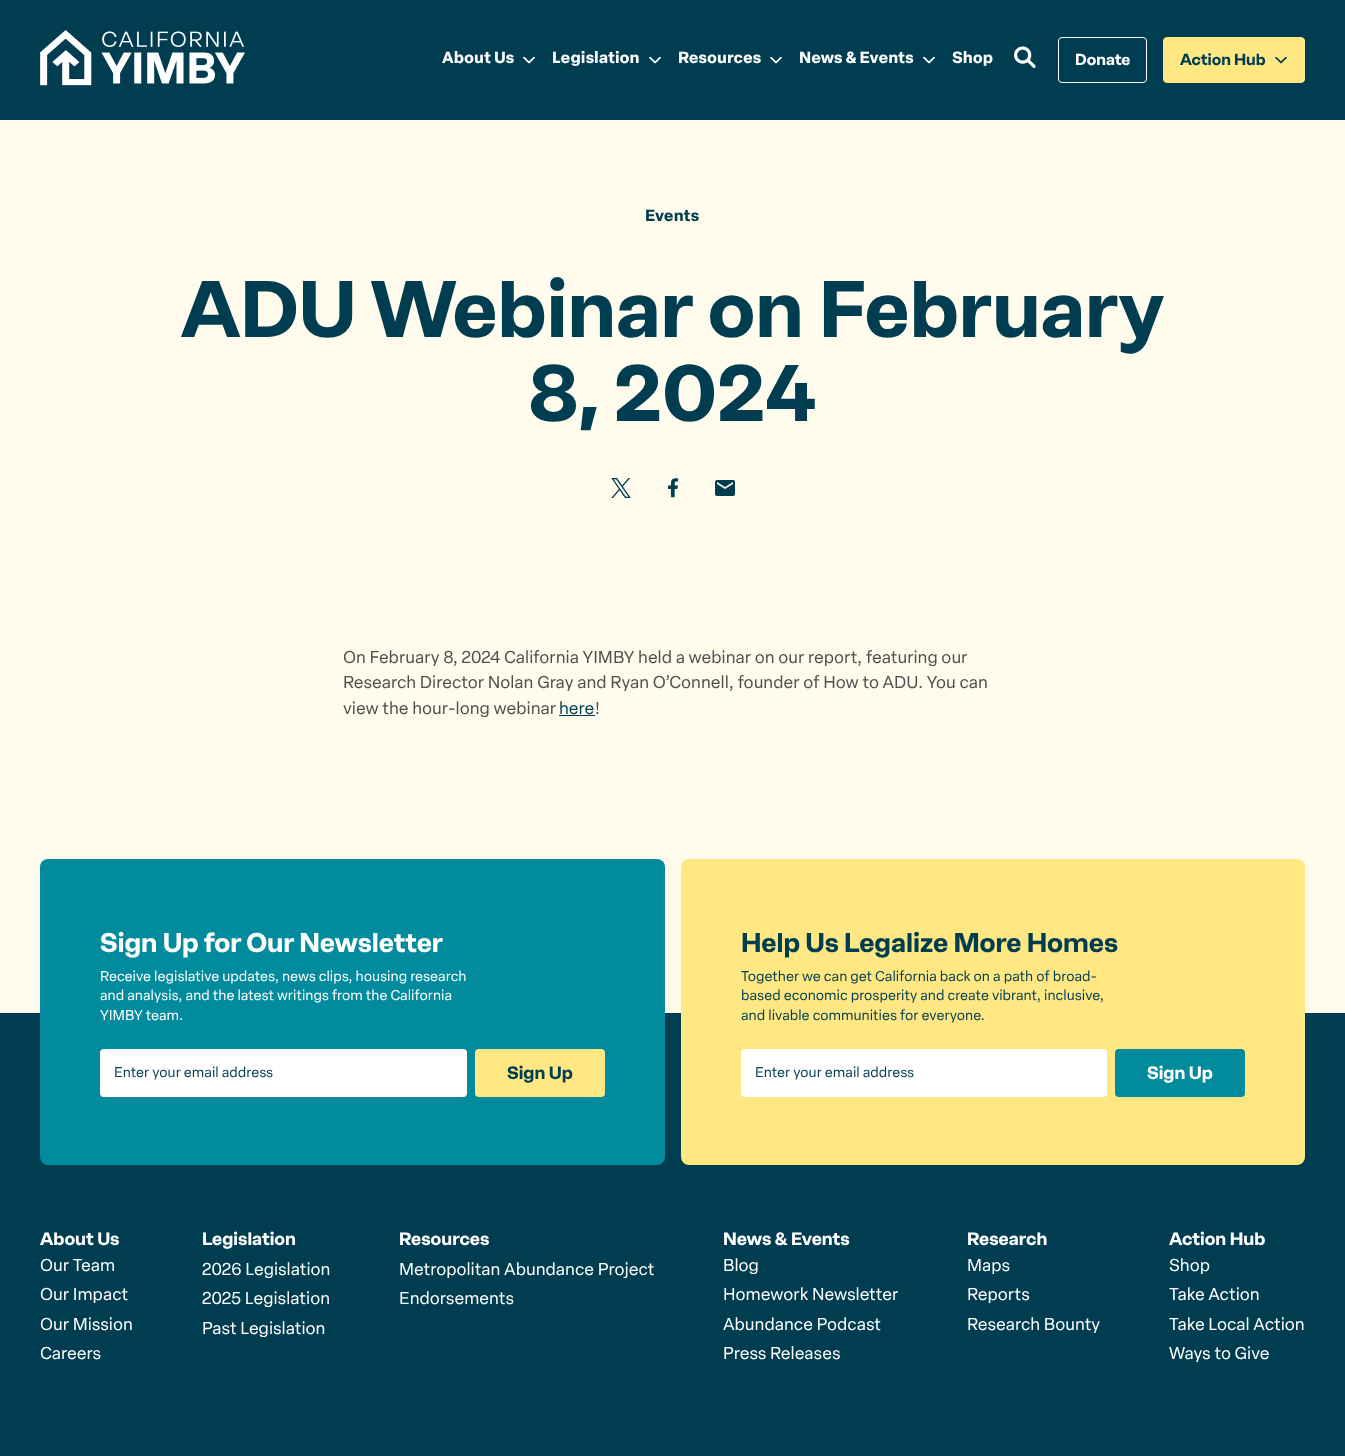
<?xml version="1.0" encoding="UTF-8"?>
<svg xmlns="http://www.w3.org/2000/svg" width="1345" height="1456">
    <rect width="100%" height="100%" fill="#FFFCEE"/>
    <rect x="0" y="0" width="1345" height="120" fill="#003D50"/>
    <image x="40" y="30" width="205" height="56" href="img_01.png"/>
    <text x="442" y="63" font-family="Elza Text" font-size="16" font-weight="700" fill="#FFFFFF">About Us</text>
    <image x="523" y="57" width="12" height="7" href="img_02.png"/>
    <text x="552" y="63" font-family="Elza Text" font-size="16" font-weight="700" fill="#FFFFFF">Legislation</text>
    <image x="649" y="57" width="12" height="7" href="img_02.png"/>
    <text x="678" y="63" font-family="Elza Text" font-size="16" font-weight="700" fill="#FFFFFF">Resources</text>
    <image x="770" y="57" width="12" height="7" href="img_02.png"/>
    <text x="799" y="63" font-family="Elza Text" font-size="16" font-weight="700" fill="#FFFFFF">News &amp; Events</text>
    <image x="923" y="57" width="12" height="7" href="img_02.png"/>
    <text x="952" y="63" font-family="Elza Text" font-size="16" font-weight="700" fill="#FFFFFF">Shop</text>
    <image x="1014" y="46" width="22" height="22" href="img_03.png"/>
    <rect x="1058.5" y="37.5" width="88" height="45" rx="3.5" fill="none" stroke="#FFFFFF"/>
    <text x="1075" y="65" font-family="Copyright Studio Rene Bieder" font-size="16" font-weight="800" fill="#FFFFFF">Donate</text>
    <rect x="1163.5" y="37.5" width="141" height="45" rx="3.5" fill="#FFE883" stroke="#FFE883"/>
    <text x="1180" y="65" font-family="Copyright Studio Rene Bieder" font-size="16" font-weight="800" fill="#003D50">Action Hub</text>
    <image x="1275" y="57" width="12" height="7" href="img_04.png"/>
    <text x="645" y="221" font-family="Elza Text" font-size="16" font-weight="700" fill="#003D50">Events</text>
    <text x="181" y="337" font-family="Copyright Studio Rene Bieder" font-size="80" font-weight="800" fill="#003D50">ADU Webinar on February</text>
    <text x="528" y="421" font-family="Copyright Studio Rene Bieder" font-size="80" font-weight="800" fill="#003D50">8, 2024</text>
    <image x="611" y="478" width="20" height="20" href="img_05.png"/>
    <image x="667" y="478" width="12" height="20" href="img_06.png"/>
    <image x="715" y="480" width="20" height="16" href="img_07.png"/>
    <text font-family="Elza Text" font-size="17" fill="#505050">
        <tspan x="343" y="663">On February 8, 2024 California YIMBY held a webinar on our report, featuring our</tspan>
        <tspan x="343" y="688">Research Director Nolan Gray and Ryan O’Connell, founder of How to ADU. You can</tspan>
        <tspan x="343" y="714">view the hour-long webinar</tspan>
    </text>
    <text x="559" y="714" font-family="Elza Text" font-size="17" fill="#003D50">here</text>
    <rect x="559" y="715" width="36" height="1" fill="#003D50"/>
    <text x="595" y="714" font-family="Elza Text" font-size="17" fill="#505050">!</text>
    <rect x="0" y="1013" width="1345" height="443" fill="#003D50"/>
    <rect x="40" y="859" width="625" height="306" rx="8" fill="#028B9D"/>
    <text x="100" y="952" font-family="Copyright Studio Rene Bieder" font-size="27" font-weight="800" fill="#FFFFFF">Sign Up for Our Newsletter</text>
    <text font-family="Elza Text" font-size="14" fill="#FFFFFF">
        <tspan x="100" y="981">Receive legislative updates, news clips, housing research</tspan>
        <tspan x="100" y="1000">and analysis, and the latest writings from the California</tspan>
        <tspan x="100" y="1020">YIMBY team.</tspan>
    </text>
    <rect x="100" y="1049" width="367" height="48" rx="4" fill="#FFFFFF"/>
    <text x="114" y="1077" font-family="Elza Text" font-size="14" fill="#003D50">Enter your email address</text>
    <rect x="475" y="1049" width="130" height="48" rx="4" fill="#FFE883"/>
    <text x="507" y="1079" font-family="Copyright Studio Rene Bieder" font-size="18" font-weight="800" fill="#003D50">Sign Up</text>
    <rect x="681" y="859" width="624" height="306" rx="8" fill="#FFE883"/>
    <text x="741" y="952" font-family="Copyright Studio Rene Bieder" font-size="27" font-weight="800" fill="#003D50">Help Us Legalize More Homes</text>
    <text font-family="Elza Text" font-size="14" fill="#003D50">
        <tspan x="741" y="981">Together we can get California back on a path of broad-</tspan>
        <tspan x="741" y="1000">based economic prosperity and create vibrant, inclusive,</tspan>
        <tspan x="741" y="1020">and livable communities for everyone.</tspan>
    </text>
    <rect x="741" y="1049" width="366" height="48" rx="4" fill="#FFFFFF"/>
    <text x="755" y="1077" font-family="Elza Text" font-size="14" fill="#003D50">Enter your email address</text>
    <rect x="1115" y="1049" width="130" height="48" rx="4" fill="#028B9D"/>
    <text x="1147" y="1079" font-family="Copyright Studio Rene Bieder" font-size="18" font-weight="800" fill="#FFFFFF">Sign Up</text>
    <text x="40" y="1245" font-family="Copyright Studio Rene Bieder" font-size="18" font-weight="800" fill="#FFFFFF">About Us</text>
    <text font-family="Elza Text" font-size="17" fill="#FFFFFF">
        <tspan x="40" y="1271">Our Team</tspan>
        <tspan x="40" y="1300">Our Impact</tspan>
        <tspan x="40" y="1330">Our Mission</tspan>
        <tspan x="40" y="1359">Careers</tspan>
    </text>
    <text x="202" y="1245" font-family="Copyright Studio Rene Bieder" font-size="18" font-weight="800" fill="#FFFFFF">Legislation</text>
    <text font-family="Elza Text" font-size="17" fill="#FFFFFF">
        <tspan x="202" y="1275">2026 Legislation</tspan>
        <tspan x="202" y="1304">2025 Legislation</tspan>
        <tspan x="202" y="1334">Past Legislation</tspan>
    </text>
    <text x="399" y="1245" font-family="Copyright Studio Rene Bieder" font-size="18" font-weight="800" fill="#FFFFFF">Resources</text>
    <text font-family="Elza Text" font-size="17" fill="#FFFFFF">
        <tspan x="399" y="1275">Metropolitan Abundance Project</tspan>
        <tspan x="399" y="1304">Endorsements</tspan>
    </text>
    <text x="723" y="1245" font-family="Copyright Studio Rene Bieder" font-size="18" font-weight="800" fill="#FFFFFF">News &amp; Events</text>
    <text font-family="Elza Text" font-size="17" fill="#FFFFFF">
        <tspan x="723" y="1271">Blog</tspan>
        <tspan x="723" y="1300">Homework Newsletter</tspan>
        <tspan x="723" y="1330">Abundance Podcast</tspan>
        <tspan x="723" y="1359">Press Releases</tspan>
    </text>
    <text x="967" y="1245" font-family="Copyright Studio Rene Bieder" font-size="18" font-weight="800" fill="#FFFFFF">Research</text>
    <text font-family="Elza Text" font-size="17" fill="#FFFFFF">
        <tspan x="967" y="1271">Maps</tspan>
        <tspan x="967" y="1300">Reports</tspan>
        <tspan x="967" y="1330">Research Bounty</tspan>
    </text>
    <text x="1169" y="1245" font-family="Copyright Studio Rene Bieder" font-size="18" font-weight="800" fill="#FFFFFF">Action Hub</text>
    <text font-family="Elza Text" font-size="17" fill="#FFFFFF">
        <tspan x="1169" y="1271">Shop</tspan>
        <tspan x="1169" y="1300">Take Action</tspan>
        <tspan x="1169" y="1330">Take Local Action</tspan>
        <tspan x="1169" y="1359">Ways to Give</tspan>
    </text>
</svg>
